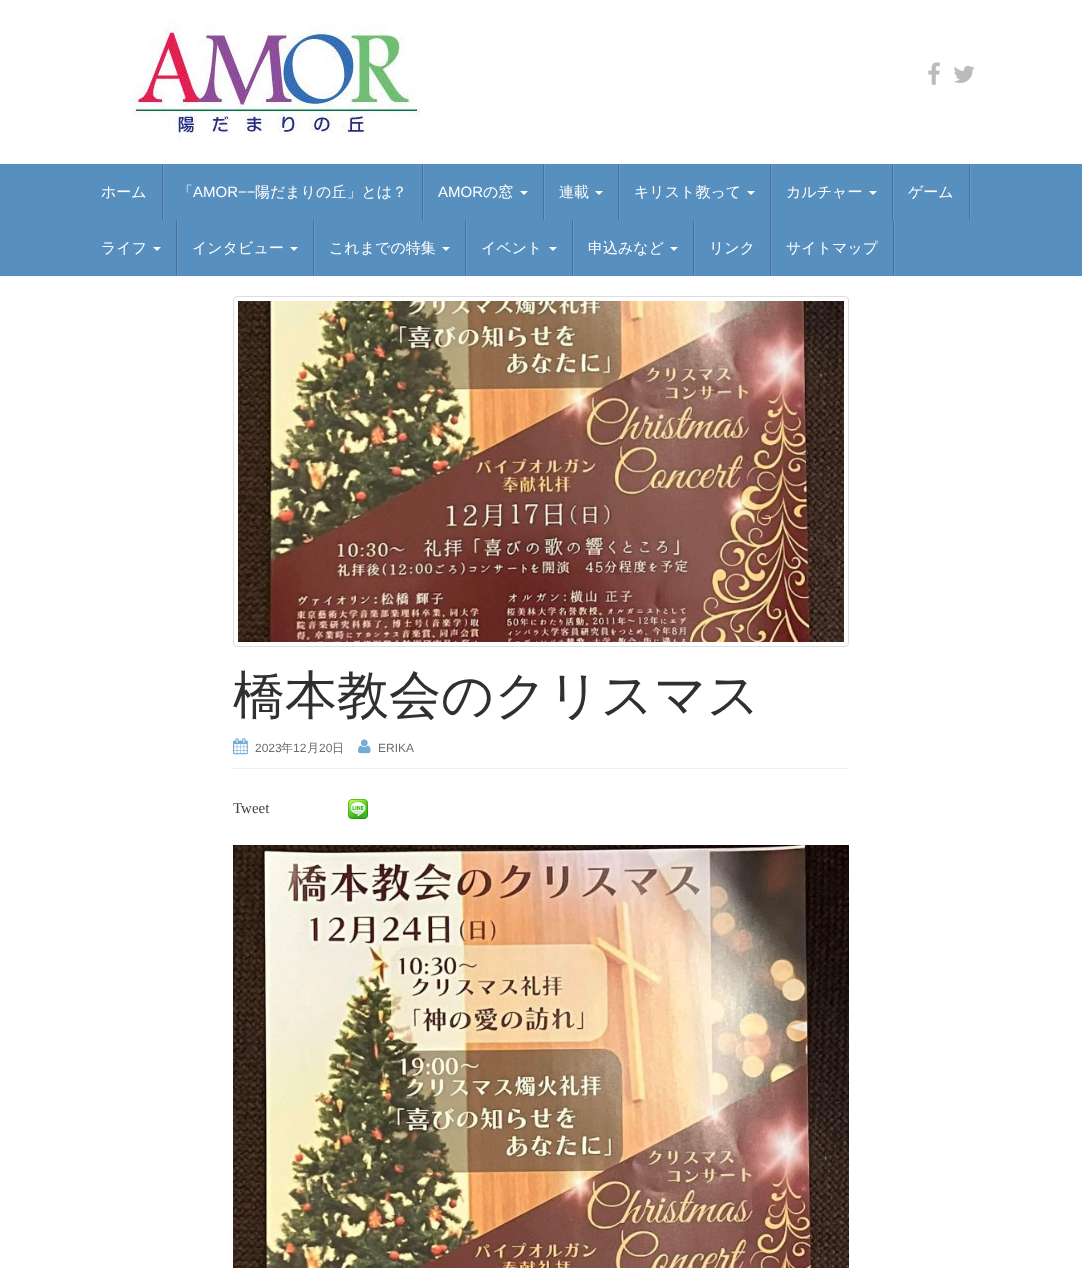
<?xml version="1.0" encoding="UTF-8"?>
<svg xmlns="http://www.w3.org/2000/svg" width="1082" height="1268">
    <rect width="100%" height="100%" fill="#FFFFFF"/>
    <image x="133" y="20" width="288" height="120" href="img_01.png"/>
    <image x="928" y="62" width="12" height="23" href="img_02.png"/>
    <image x="954" y="65" width="21" height="18" href="img_03.png"/>
    <rect x="0" y="164" width="1082" height="112" fill="#578FBF"/>
    <rect x="163" y="164" width="1" height="56" fill="#689AC5"/>
    <rect x="162" y="164" width="1" height="56" fill="#467299"/>
    <text x="101" y="197" font-family="WenQuanYi Zen Hei" font-size="15" font-weight="500" fill="#FFFFFF">ホーム</text>
    <rect x="423" y="164" width="1" height="56" fill="#689AC5"/>
    <rect x="422" y="164" width="1" height="56" fill="#467299"/>
    <text x="178" y="197" font-family="WenQuanYi Zen Hei" font-size="15" font-weight="500" fill="#FFFFFF">「</text>
    <text x="193" y="197" font-family="Liberation Sans" font-size="15" fill="#FFFFFF">AMOR−−</text>
    <text x="255" y="197" font-family="WenQuanYi Zen Hei" font-size="15" font-weight="500" fill="#FFFFFF">陽だまりの丘」とは？</text>
    <rect x="544" y="164" width="1" height="56" fill="#689AC5"/>
    <rect x="543" y="164" width="1" height="56" fill="#467299"/>
    <text x="438" y="197" font-family="Liberation Sans" font-size="15" fill="#FFFFFF">AMOR</text>
    <text x="483" y="197" font-family="WenQuanYi Zen Hei" font-size="15" font-weight="500" fill="#FFFFFF">の窓</text>
    <path d="M 520 191 H 528 L 524 195 Z" fill="#FFFFFF"/>
    <rect x="619" y="164" width="1" height="56" fill="#689AC5"/>
    <rect x="618" y="164" width="1" height="56" fill="#467299"/>
    <text x="559" y="197" font-family="WenQuanYi Zen Hei" font-size="15" font-weight="500" fill="#FFFFFF">連載</text>
    <path d="M 595 191 H 603 L 599 195 Z" fill="#FFFFFF"/>
    <rect x="771" y="164" width="1" height="112" fill="#689AC5"/>
    <rect x="770" y="164" width="1" height="112" fill="#467299"/>
    <text x="634" y="197" font-family="WenQuanYi Zen Hei" font-size="15" font-weight="500" fill="#FFFFFF">キリスト教って</text>
    <path d="M 747 191 H 755 L 751 195 Z" fill="#FFFFFF"/>
    <rect x="893" y="164" width="1" height="56" fill="#689AC5"/>
    <rect x="892" y="164" width="1" height="56" fill="#467299"/>
    <text x="786" y="197" font-family="WenQuanYi Zen Hei" font-size="15" font-weight="500" fill="#FFFFFF">カルチャー</text>
    <path d="M 869 191 H 877 L 873 195 Z" fill="#FFFFFF"/>
    <rect x="970" y="164" width="1" height="56" fill="#689AC5"/>
    <rect x="969" y="164" width="1" height="56" fill="#467299"/>
    <text x="908" y="197" font-family="WenQuanYi Zen Hei" font-size="15" font-weight="500" fill="#FFFFFF">ゲーム</text>
    <rect x="177" y="220" width="1" height="56" fill="#689AC5"/>
    <rect x="176" y="220" width="1" height="56" fill="#467299"/>
    <text x="101" y="253" font-family="WenQuanYi Zen Hei" font-size="15" font-weight="500" fill="#FFFFFF">ライフ</text>
    <path d="M 153 247 H 161 L 157 251 Z" fill="#FFFFFF"/>
    <rect x="314" y="220" width="1" height="56" fill="#689AC5"/>
    <rect x="313" y="220" width="1" height="56" fill="#467299"/>
    <text x="192" y="253" font-family="WenQuanYi Zen Hei" font-size="15" font-weight="500" fill="#FFFFFF">インタビュー</text>
    <path d="M 290 247 H 298 L 294 251 Z" fill="#FFFFFF"/>
    <rect x="466" y="220" width="1" height="56" fill="#689AC5"/>
    <rect x="465" y="220" width="1" height="56" fill="#467299"/>
    <text x="329" y="253" font-family="WenQuanYi Zen Hei" font-size="15" font-weight="500" fill="#FFFFFF">これまでの特集</text>
    <path d="M 442 247 H 450 L 446 251 Z" fill="#FFFFFF"/>
    <rect x="573" y="220" width="1" height="56" fill="#689AC5"/>
    <rect x="572" y="220" width="1" height="56" fill="#467299"/>
    <text x="481" y="253" font-family="WenQuanYi Zen Hei" font-size="15" font-weight="500" fill="#FFFFFF">イベント</text>
    <path d="M 549 247 H 557 L 553 251 Z" fill="#FFFFFF"/>
    <rect x="694" y="220" width="1" height="56" fill="#689AC5"/>
    <rect x="693" y="220" width="1" height="56" fill="#467299"/>
    <text x="588" y="253" font-family="WenQuanYi Zen Hei" font-size="15" font-weight="500" fill="#FFFFFF">申込みなど</text>
    <path d="M 670 247 H 678 L 674 251 Z" fill="#FFFFFF"/>
    <text x="709" y="253" font-family="WenQuanYi Zen Hei" font-size="15" font-weight="500" fill="#FFFFFF">リンク</text>
    <rect x="894" y="220" width="1" height="56" fill="#689AC5"/>
    <rect x="893" y="220" width="1" height="56" fill="#467299"/>
    <text x="786" y="253" font-family="WenQuanYi Zen Hei" font-size="15" font-weight="500" fill="#FFFFFF">サイトマップ</text>
    <rect x="233" y="768" width="616" height="1" fill="#EEEEEE"/>
    <rect x="233.5" y="296.5" width="615" height="350" rx="3.5" fill="none" stroke="#DDDDDD"/>
    <image x="238" y="301" width="606" height="341" href="img_04.png"/>
    <text x="233" y="713" font-family="WenQuanYi Zen Hei" font-size="52" font-weight="500" fill="#303030">橋本教会のクリスマス</text>
    <image x="233" y="738" width="15" height="17" href="img_05.png"/>
    <text x="255" y="752" font-family="Liberation Sans" font-size="12" fill="#6B6B6B">2023</text>
    <text x="281" y="752" font-family="WenQuanYi Zen Hei" font-size="12" font-weight="500" fill="#6B6B6B">年</text>
    <text x="293" y="752" font-family="Liberation Sans" font-size="12" fill="#6B6B6B">12</text>
    <text x="307" y="752" font-family="WenQuanYi Zen Hei" font-size="12" font-weight="500" fill="#6B6B6B">月</text>
    <text x="319" y="752" font-family="Liberation Sans" font-size="12" fill="#6B6B6B">20</text>
    <text x="332" y="752" font-family="WenQuanYi Zen Hei" font-size="12" font-weight="500" fill="#6B6B6B">日</text>
    <image x="358" y="739" width="13" height="15" href="img_06.png"/>
    <text x="378" y="752" font-family="Liberation Sans" font-size="12" fill="#6B6B6B">ERIKA</text>
    <text x="233" y="813" font-family="Liberation Serif" font-size="15" fill="#444444">Tweet</text>
    <image x="348" y="799" width="20" height="20" href="img_07.png"/>
    <image x="233" y="845" width="616" height="423" href="img_08.png"/>
</svg>
